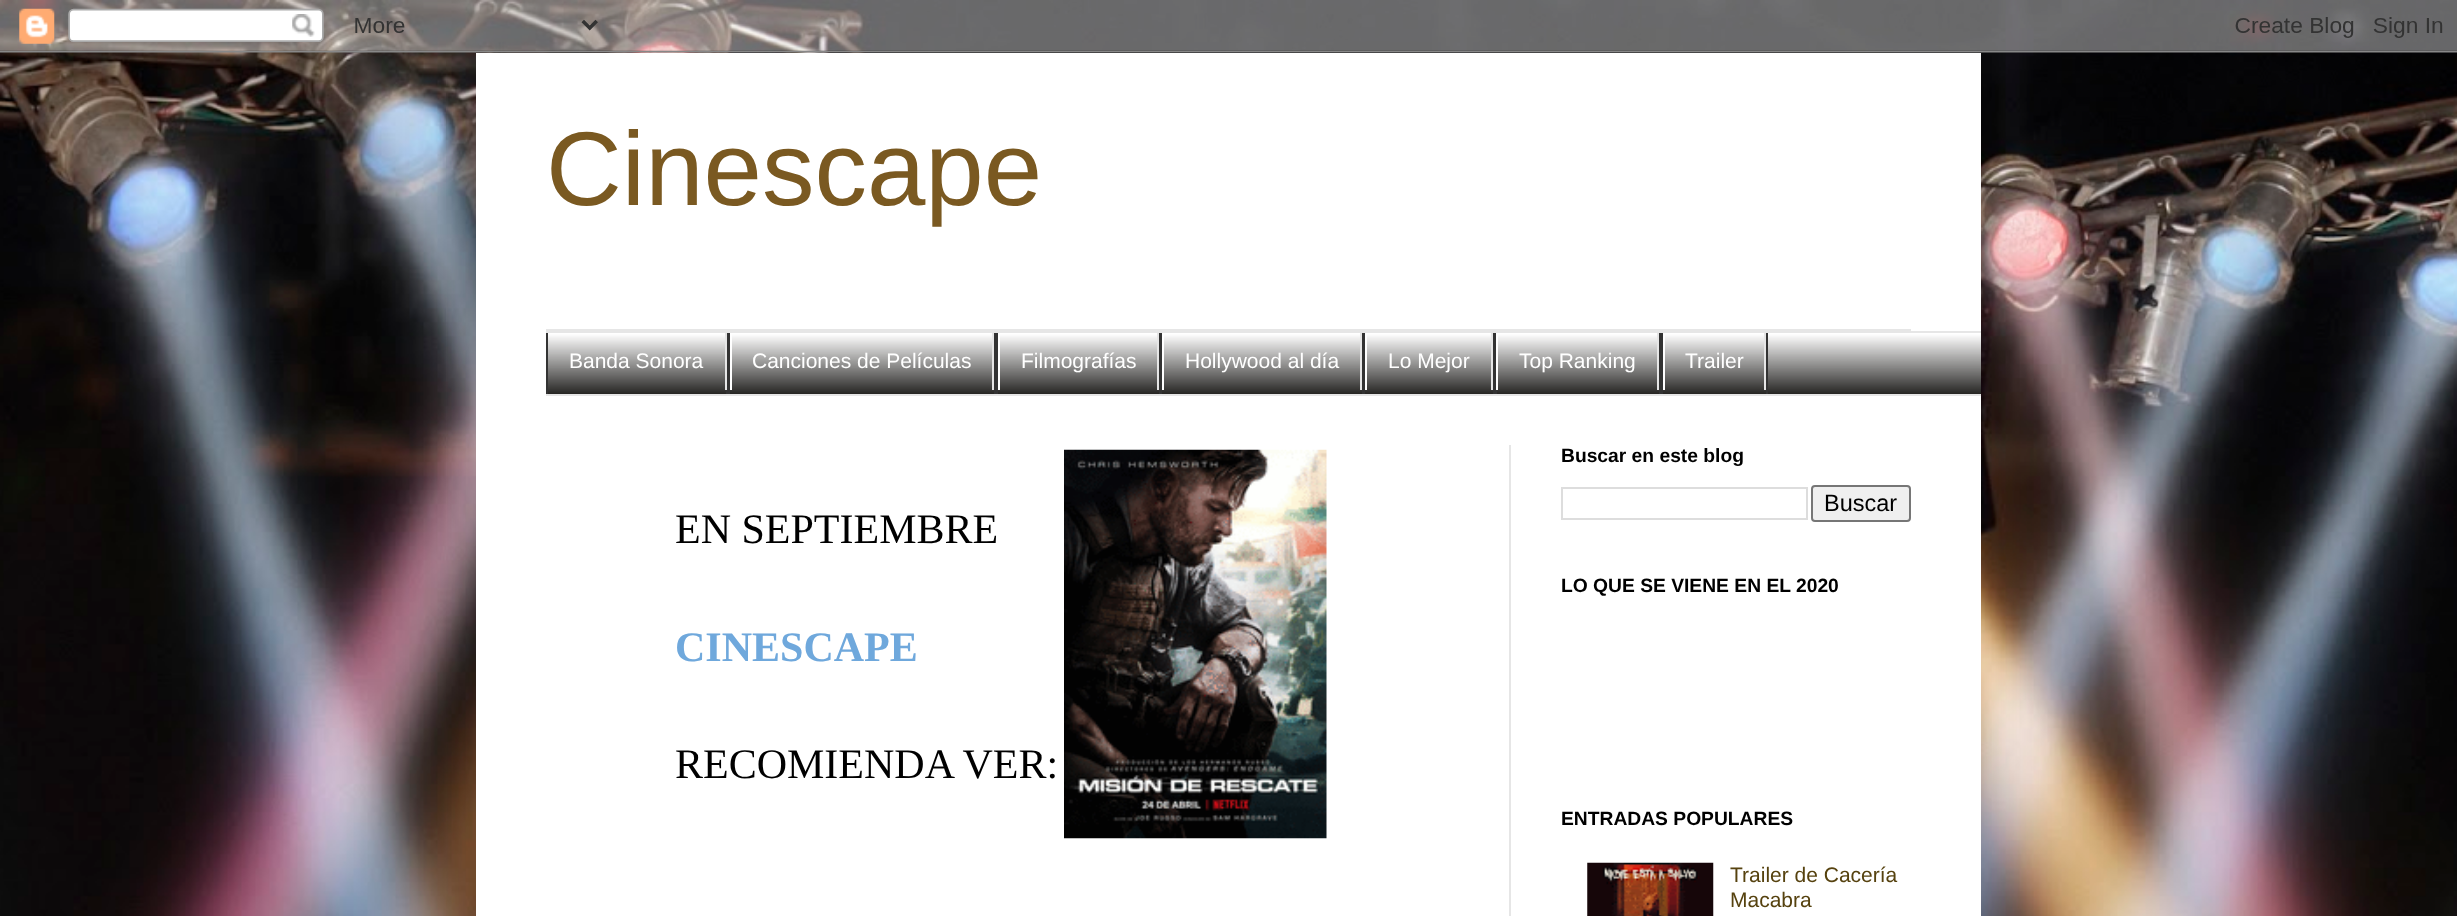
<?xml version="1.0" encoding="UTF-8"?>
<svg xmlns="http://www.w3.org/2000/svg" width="2457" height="916">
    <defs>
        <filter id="blur1" x="-50%" y="-200%" width="200%" height="500%"><feGaussianBlur stdDeviation="35"/></filter>
    </defs>
    <rect width="100%" height="100%" fill="#FFFFFF"/>
    <image x="0" y="0" width="2457" height="916" href="img_01.png"/>
    <rect x="476" y="53" width="1505" height="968" fill="#000000" fill-opacity="0.15" filter="url(#blur1)"/>
    <image x="0" y="0" width="2457" height="53" href="img_02.png"/>
    <rect x="476" y="53" width="1505" height="863" fill="#FFFFFF"/>
    <text x="546" y="205" font-family="Liberation Sans" font-size="105" fill="#7A5921">Cinescape</text>
    <rect x="546" y="329" width="1365" height="2" fill="#E6E6E6"/>
    <rect x="548" y="334" width="1433" height="60" fill="#0F0E0C"/>
    <image x="548" y="333" width="1433" height="61" href="img_03.png"/>
    <rect x="546" y="331" width="1435" height="2" fill="#E6E6E6"/>
    <rect x="546" y="394" width="1435" height="2" fill="#E6E6E6"/>
    <rect x="726" y="333" width="4" height="61" fill="#333333"/>
    <rect x="546" y="333" width="2" height="61" fill="#333333"/>
    <rect x="725" y="333" width="2" height="57" fill="#E6E6E6"/>
    <text x="569" y="368" font-family="Liberation Sans" font-size="21" fill="#FFFFFF">Banda Sonora</text>
    <rect x="994" y="333" width="4" height="61" fill="#333333"/>
    <rect x="992" y="333" width="2" height="57" fill="#E6E6E6"/>
    <rect x="730" y="333" width="2" height="57" fill="#FFFFFF"/>
    <text x="752" y="368" font-family="Liberation Sans" font-size="21" fill="#FFFFFF">Canciones de Películas</text>
    <rect x="1159" y="333" width="3" height="61" fill="#333333"/>
    <rect x="1157" y="333" width="2" height="57" fill="#E6E6E6"/>
    <rect x="998" y="333" width="2" height="57" fill="#FFFFFF"/>
    <text x="1021" y="368" font-family="Liberation Sans" font-size="21" fill="#FFFFFF">Filmografías</text>
    <rect x="1362" y="333" width="3" height="61" fill="#333333"/>
    <rect x="1360" y="333" width="2" height="57" fill="#E6E6E6"/>
    <rect x="1162" y="333" width="2" height="57" fill="#FFFFFF"/>
    <text x="1185" y="368" font-family="Liberation Sans" font-size="21" fill="#FFFFFF">Hollywood al día</text>
    <rect x="1493" y="333" width="4" height="61" fill="#333333"/>
    <rect x="1491" y="333" width="2" height="57" fill="#E6E6E6"/>
    <rect x="1365" y="333" width="2" height="57" fill="#FFFFFF"/>
    <text x="1388" y="368" font-family="Liberation Sans" font-size="21" fill="#FFFFFF">Lo Mejor</text>
    <rect x="1659" y="333" width="4" height="61" fill="#333333"/>
    <rect x="1657" y="333" width="2" height="57" fill="#E6E6E6"/>
    <rect x="1496" y="333" width="2" height="57" fill="#FFFFFF"/>
    <text x="1519" y="368" font-family="Liberation Sans" font-size="21" fill="#FFFFFF">Top Ranking</text>
    <rect x="1766" y="333" width="2" height="61" fill="#333333"/>
    <rect x="1764" y="333" width="2" height="57" fill="#E6E6E6"/>
    <rect x="1663" y="333" width="2" height="57" fill="#FFFFFF"/>
    <text x="1685" y="368" font-family="Liberation Sans" font-size="21" fill="#FFFFFF">Trailer</text>
    <rect x="1509" y="445" width="2" height="471" fill="#E6E6E6"/>
    <text x="675" y="543" font-family="Liberation Serif" font-size="42" fill="#000000">EN SEPTIEMBRE</text>
    <text x="675" y="661" font-family="Liberation Serif" font-size="42" font-weight="700" fill="#6FA8DC">CINESCAPE</text>
    <text x="675" y="778" font-family="Liberation Serif" font-size="42" fill="#000000">RECOMIENDA VER:</text>
    <image x="1064" y="449" width="263" height="390" href="img_04.png"/>
    <text x="1561" y="462" font-family="Liberation Sans" font-size="19.25" font-weight="700" fill="#000000">Buscar en este blog</text>
    <rect x="1562" y="488" width="245" height="31" fill="none" stroke="#DDDDDD" stroke-width="2"/>
    <rect x="1812" y="486" width="98" height="35" rx="3" fill="#EFEFEF" stroke="#767676" stroke-width="2"/>
    <text x="1824" y="511" font-family="Liberation Sans" font-size="23.5" fill="#000000">Buscar</text>
    <text x="1561" y="592" font-family="Liberation Sans" font-size="19.25" font-weight="700" fill="#000000">LO QUE SE VIENE EN EL 2020</text>
    <text x="1561" y="825" font-family="Liberation Sans" font-size="19.25" font-weight="700" fill="#000000">ENTRADAS POPULARES</text>
    <image x="1587" y="862" width="127" height="54" href="img_05.png"/>
    <text font-family="Liberation Sans" font-size="21" fill="#56420F">
        <tspan x="1730" y="882">Trailer de Cacería</tspan>
        <tspan x="1730" y="907">Macabra</tspan>
    </text>
</svg>
